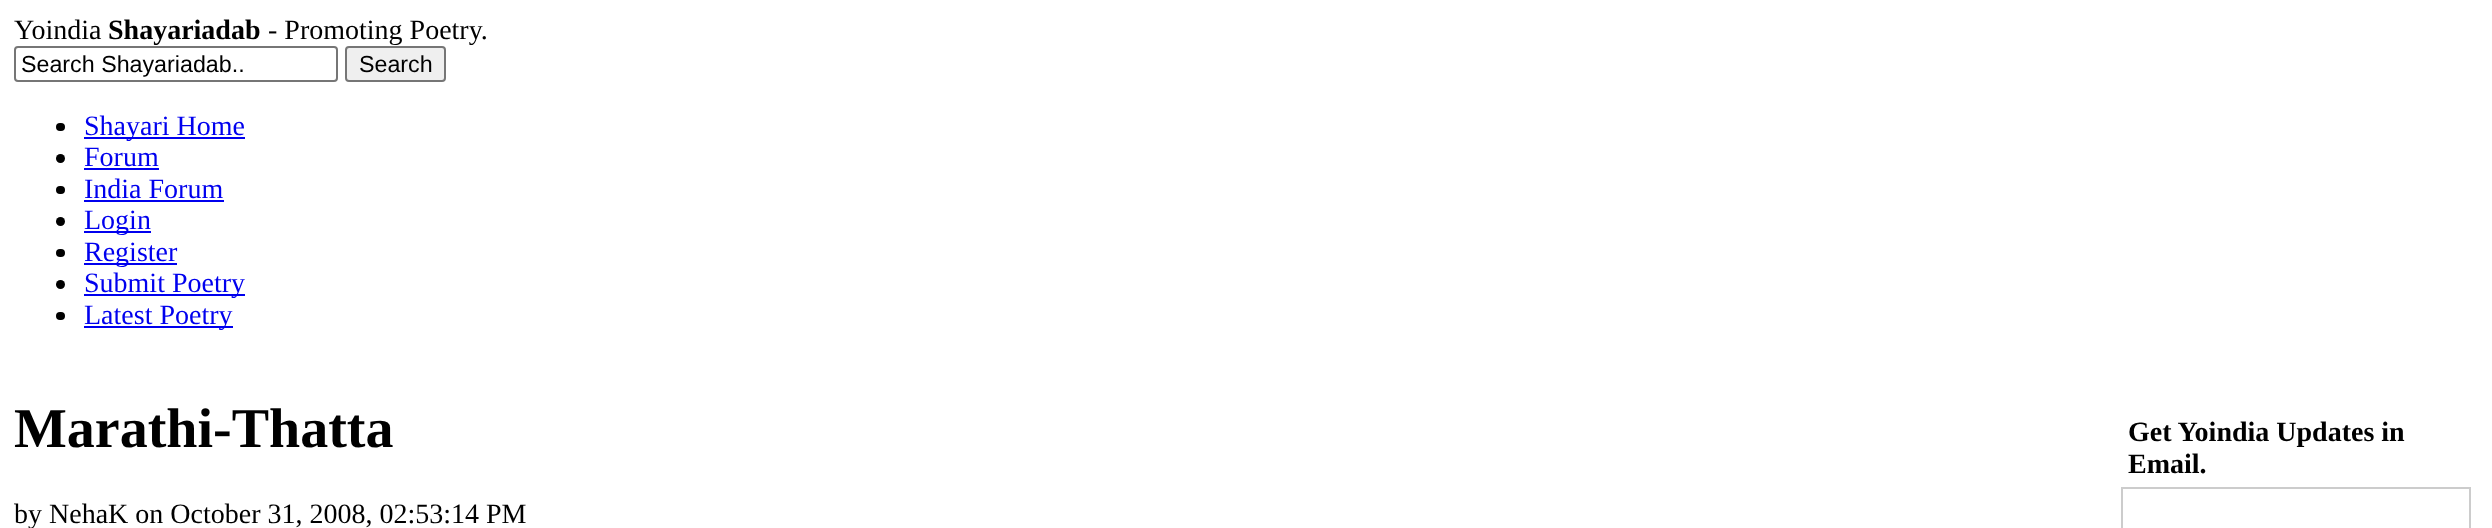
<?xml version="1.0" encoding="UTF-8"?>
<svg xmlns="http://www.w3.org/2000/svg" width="2492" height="528">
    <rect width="100%" height="100%" fill="#FFFFFF"/>
    <text x="14" y="39" font-family="Liberation Serif" font-size="28" fill="#000000">Yoindia</text>
    <text x="108" y="39" font-family="Liberation Serif" font-size="28" font-weight="700" fill="#000000">Shayariadab</text>
    <text x="268" y="39" font-family="Liberation Serif" font-size="28" fill="#000000">- Promoting Poetry.</text>
    <rect x="15" y="47" width="322" height="34" rx="3" fill="none" stroke="#767676" stroke-width="2"/>
    <text x="21" y="72" font-family="Liberation Sans" font-size="23.25" fill="#000000">Search Shayariadab..</text>
    <rect x="346" y="47" width="99" height="34" rx="3" fill="#EFEFEF" stroke="#767676" stroke-width="2"/>
    <text x="359" y="72" font-family="Liberation Sans" font-size="23.25" fill="#000000">Search</text>
    <rect x="56" y="123" width="9" height="8" rx="4" fill="#000000"/>
    <rect x="84" y="137" width="161" height="2" fill="#0000EE"/>
    <text x="84" y="135" font-family="Liberation Serif" font-size="28" fill="#0000EE">Shayari Home</text>
    <circle cx="60.5" cy="158.5" r="4.5" fill="#000000"/>
    <text x="84" y="166" font-family="Liberation Serif" font-size="28" fill="#0000EE">Forum</text>
    <rect x="84" y="168" width="75" height="2" fill="#0000EE"/>
    <rect x="56" y="186" width="9" height="8" rx="4" fill="#000000"/>
    <text x="84" y="198" font-family="Liberation Serif" font-size="28" fill="#0000EE">India Forum</text>
    <rect x="84" y="200" width="140" height="2" fill="#0000EE"/>
    <circle cx="60.5" cy="221.5" r="4.5" fill="#000000"/>
    <rect x="84" y="231" width="67" height="2" fill="#0000EE"/>
    <text x="84" y="229" font-family="Liberation Serif" font-size="28" fill="#0000EE">Login</text>
    <rect x="56" y="249" width="9" height="8" rx="4" fill="#000000"/>
    <rect x="84" y="263" width="93" height="2" fill="#0000EE"/>
    <text x="84" y="261" font-family="Liberation Serif" font-size="28" fill="#0000EE">Register</text>
    <circle cx="60.5" cy="284.5" r="4.5" fill="#000000"/>
    <rect x="84" y="294" width="161" height="2" fill="#0000EE"/>
    <text x="84" y="292" font-family="Liberation Serif" font-size="28" fill="#0000EE">Submit Poetry</text>
    <rect x="56" y="312" width="9" height="8" rx="4" fill="#000000"/>
    <rect x="84" y="326" width="149" height="2" fill="#0000EE"/>
    <text x="84" y="324" font-family="Liberation Serif" font-size="28" fill="#0000EE">Latest Poetry</text>
    <text x="14" y="447" font-family="Liberation Serif" font-size="56" font-weight="700" fill="#000000">Marathi-Thatta</text>
    <text x="14" y="523" font-family="Liberation Serif" font-size="28" fill="#000000">by NehaK on October 31, 2008, 02:53:14 PM</text>
    <text font-family="Liberation Serif" font-size="28" font-weight="700" fill="#000000">
        <tspan x="2128" y="441">Get Yoindia Updates in</tspan>
        <tspan x="2128" y="473">Email.</tspan>
    </text>
    <rect x="2122" y="488" width="348" height="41" fill="none" stroke="#CCCCCC" stroke-width="2"/>
</svg>
